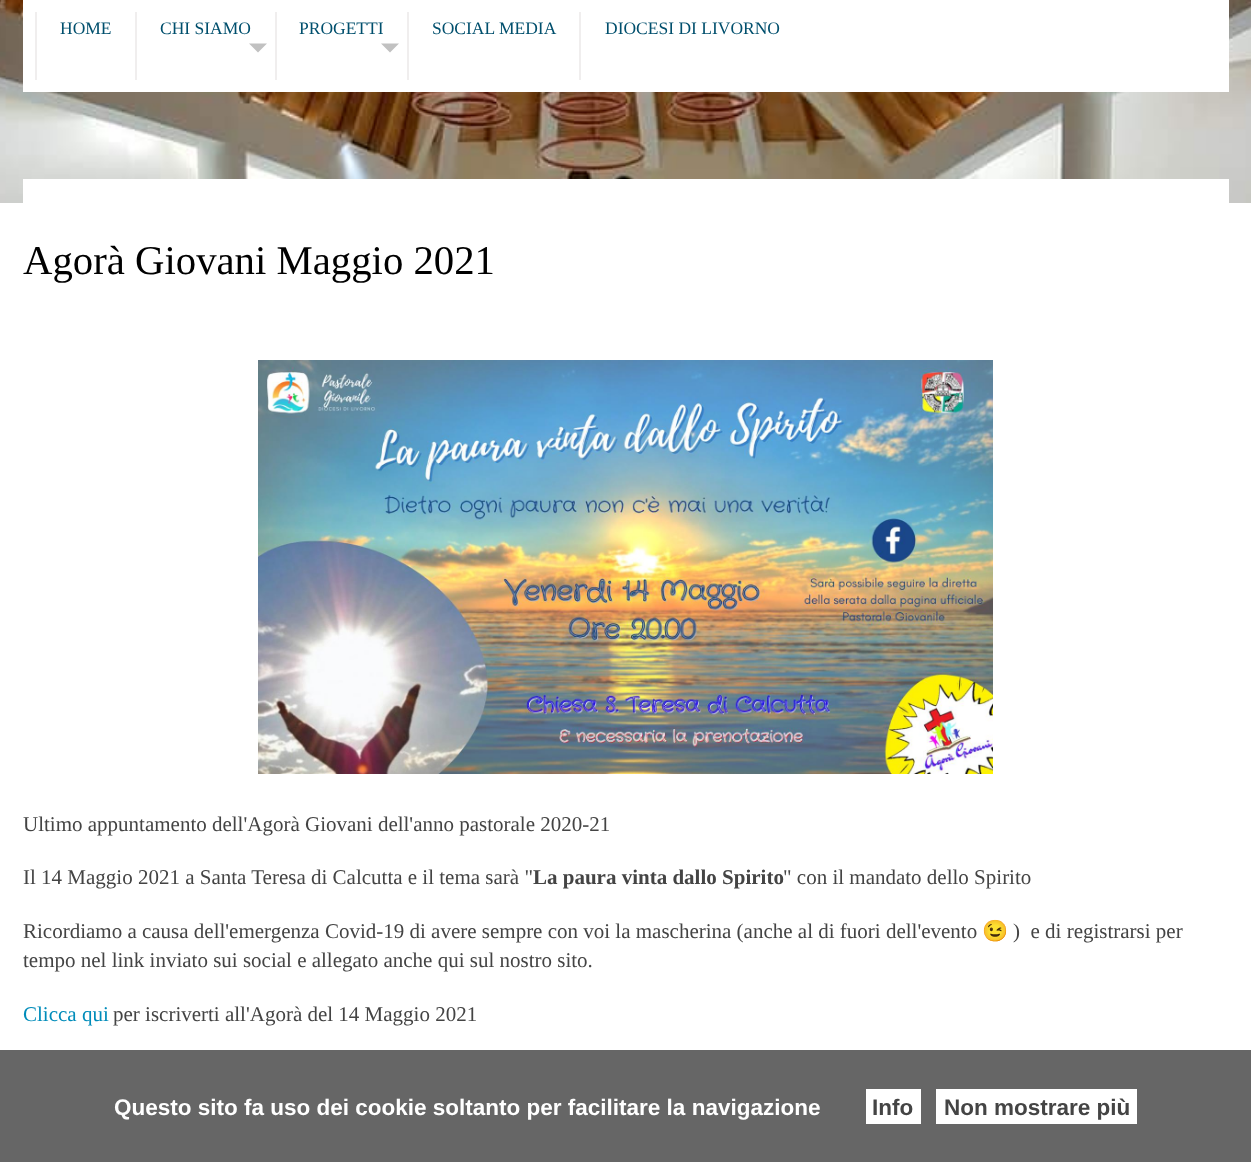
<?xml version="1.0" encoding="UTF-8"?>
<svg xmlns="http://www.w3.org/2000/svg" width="1251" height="1162">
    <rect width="100%" height="100%" fill="#FFFFFF"/>
    <image x="0" y="0" width="1251" height="203" href="img_01.png"/>
    <rect x="23" y="0" width="1206" height="92" fill="#FFFFFF"/>
    <rect x="35" y="12" width="2" height="68" fill="#F0EEEE"/>
    <text x="60" y="34" font-family="Liberation Serif" font-size="17.5" fill="#004F6D">HOME</text>
    <rect x="135" y="12" width="2" height="68" fill="#F0EEEE"/>
    <text x="160" y="34" font-family="Liberation Serif" font-size="17.5" fill="#004F6D">CHI SIAMO</text>
    <path d="M 249 43.5 H 267 L 258 52.5 Z" fill="#C1C1C1"/>
    <rect x="275" y="12" width="2" height="68" fill="#F0EEEE"/>
    <text x="299" y="34" font-family="Liberation Serif" font-size="17.5" fill="#004F6D">PROGETTI</text>
    <path d="M 381 43.5 H 399 L 390 52.5 Z" fill="#C1C1C1"/>
    <rect x="407" y="12" width="2" height="68" fill="#F0EEEE"/>
    <text x="432" y="34" font-family="Liberation Serif" font-size="17.5" fill="#004F6D">SOCIAL MEDIA</text>
    <rect x="579" y="12" width="2" height="68" fill="#F0EEEE"/>
    <text x="605" y="34" font-family="Liberation Serif" font-size="17.5" fill="#004F6D">DIOCESI DI LIVORNO</text>
    <rect x="23" y="179" width="1206" height="24" fill="#FFFFFF"/>
    <text x="23" y="274" font-family="Liberation Serif" font-size="40.75" fill="#000000">Agorà Giovani Maggio 2021</text>
    <image x="258" y="360" width="735" height="414" href="img_02.png"/>
    <text x="23" y="831" font-family="Liberation Serif" font-size="21" fill="#444444">Ultimo appuntamento dell'Agorà Giovani dell'anno pastorale 2020-21</text>
    <text x="23" y="884" font-family="Liberation Serif" font-size="21" fill="#444444">Il 14 Maggio 2021 a Santa Teresa di Calcutta e il tema sarà "</text>
    <text x="533" y="884" font-family="Liberation Serif" font-size="21" font-weight="700" fill="#444444">La paura vinta dallo Spirito</text>
    <text x="783" y="884" font-family="Liberation Serif" font-size="21" fill="#444444">" con il mandato dello Spirito</text>
    <text x="23" y="938" font-family="Liberation Serif" font-size="21" fill="#444444">Ricordiamo a causa dell'emergenza Covid-19 di avere sempre con voi la mascherina (anche al di fuori dell'evento</text>
    <text x="982" y="938" font-family="Noto Color Emoji" font-size="21" fill="#444444">😉</text>
    <text x="1013" y="938" font-family="Liberation Serif" font-size="21" fill="#444444" xml:space="preserve">)  e di registrarsi per</text>
    <text x="23" y="967" font-family="Liberation Serif" font-size="21" fill="#444444">tempo nel link inviato sui social e allegato anche qui sul nostro sito.</text>
    <text x="23" y="1021" font-family="Liberation Serif" font-size="21" fill="#008CBA">Clicca qui</text>
    <text x="113" y="1021" font-family="Liberation Serif" font-size="21" fill="#444444">per iscriverti all'Agorà del 14 Maggio 2021</text>
    <rect x="0" y="1050" width="1251" height="112" fill="#555555" fill-opacity="0.9"/>
    <text x="114" y="1115" font-family="Liberation Sans" font-size="22.5" font-weight="700" fill="#FFFFFF">Questo sito fa uso dei cookie soltanto per facilitare la navigazione</text>
    <rect x="866" y="1089" width="55" height="35" fill="#FFFFFF"/>
    <text x="872" y="1115" font-family="Liberation Sans" font-size="22.5" font-weight="700" fill="#444444">Info</text>
    <rect x="936" y="1089" width="201" height="35" fill="#FFFFFF"/>
    <text x="944" y="1115" font-family="Liberation Sans" font-size="22.5" font-weight="700" fill="#444444">Non mostrare più</text>
</svg>
